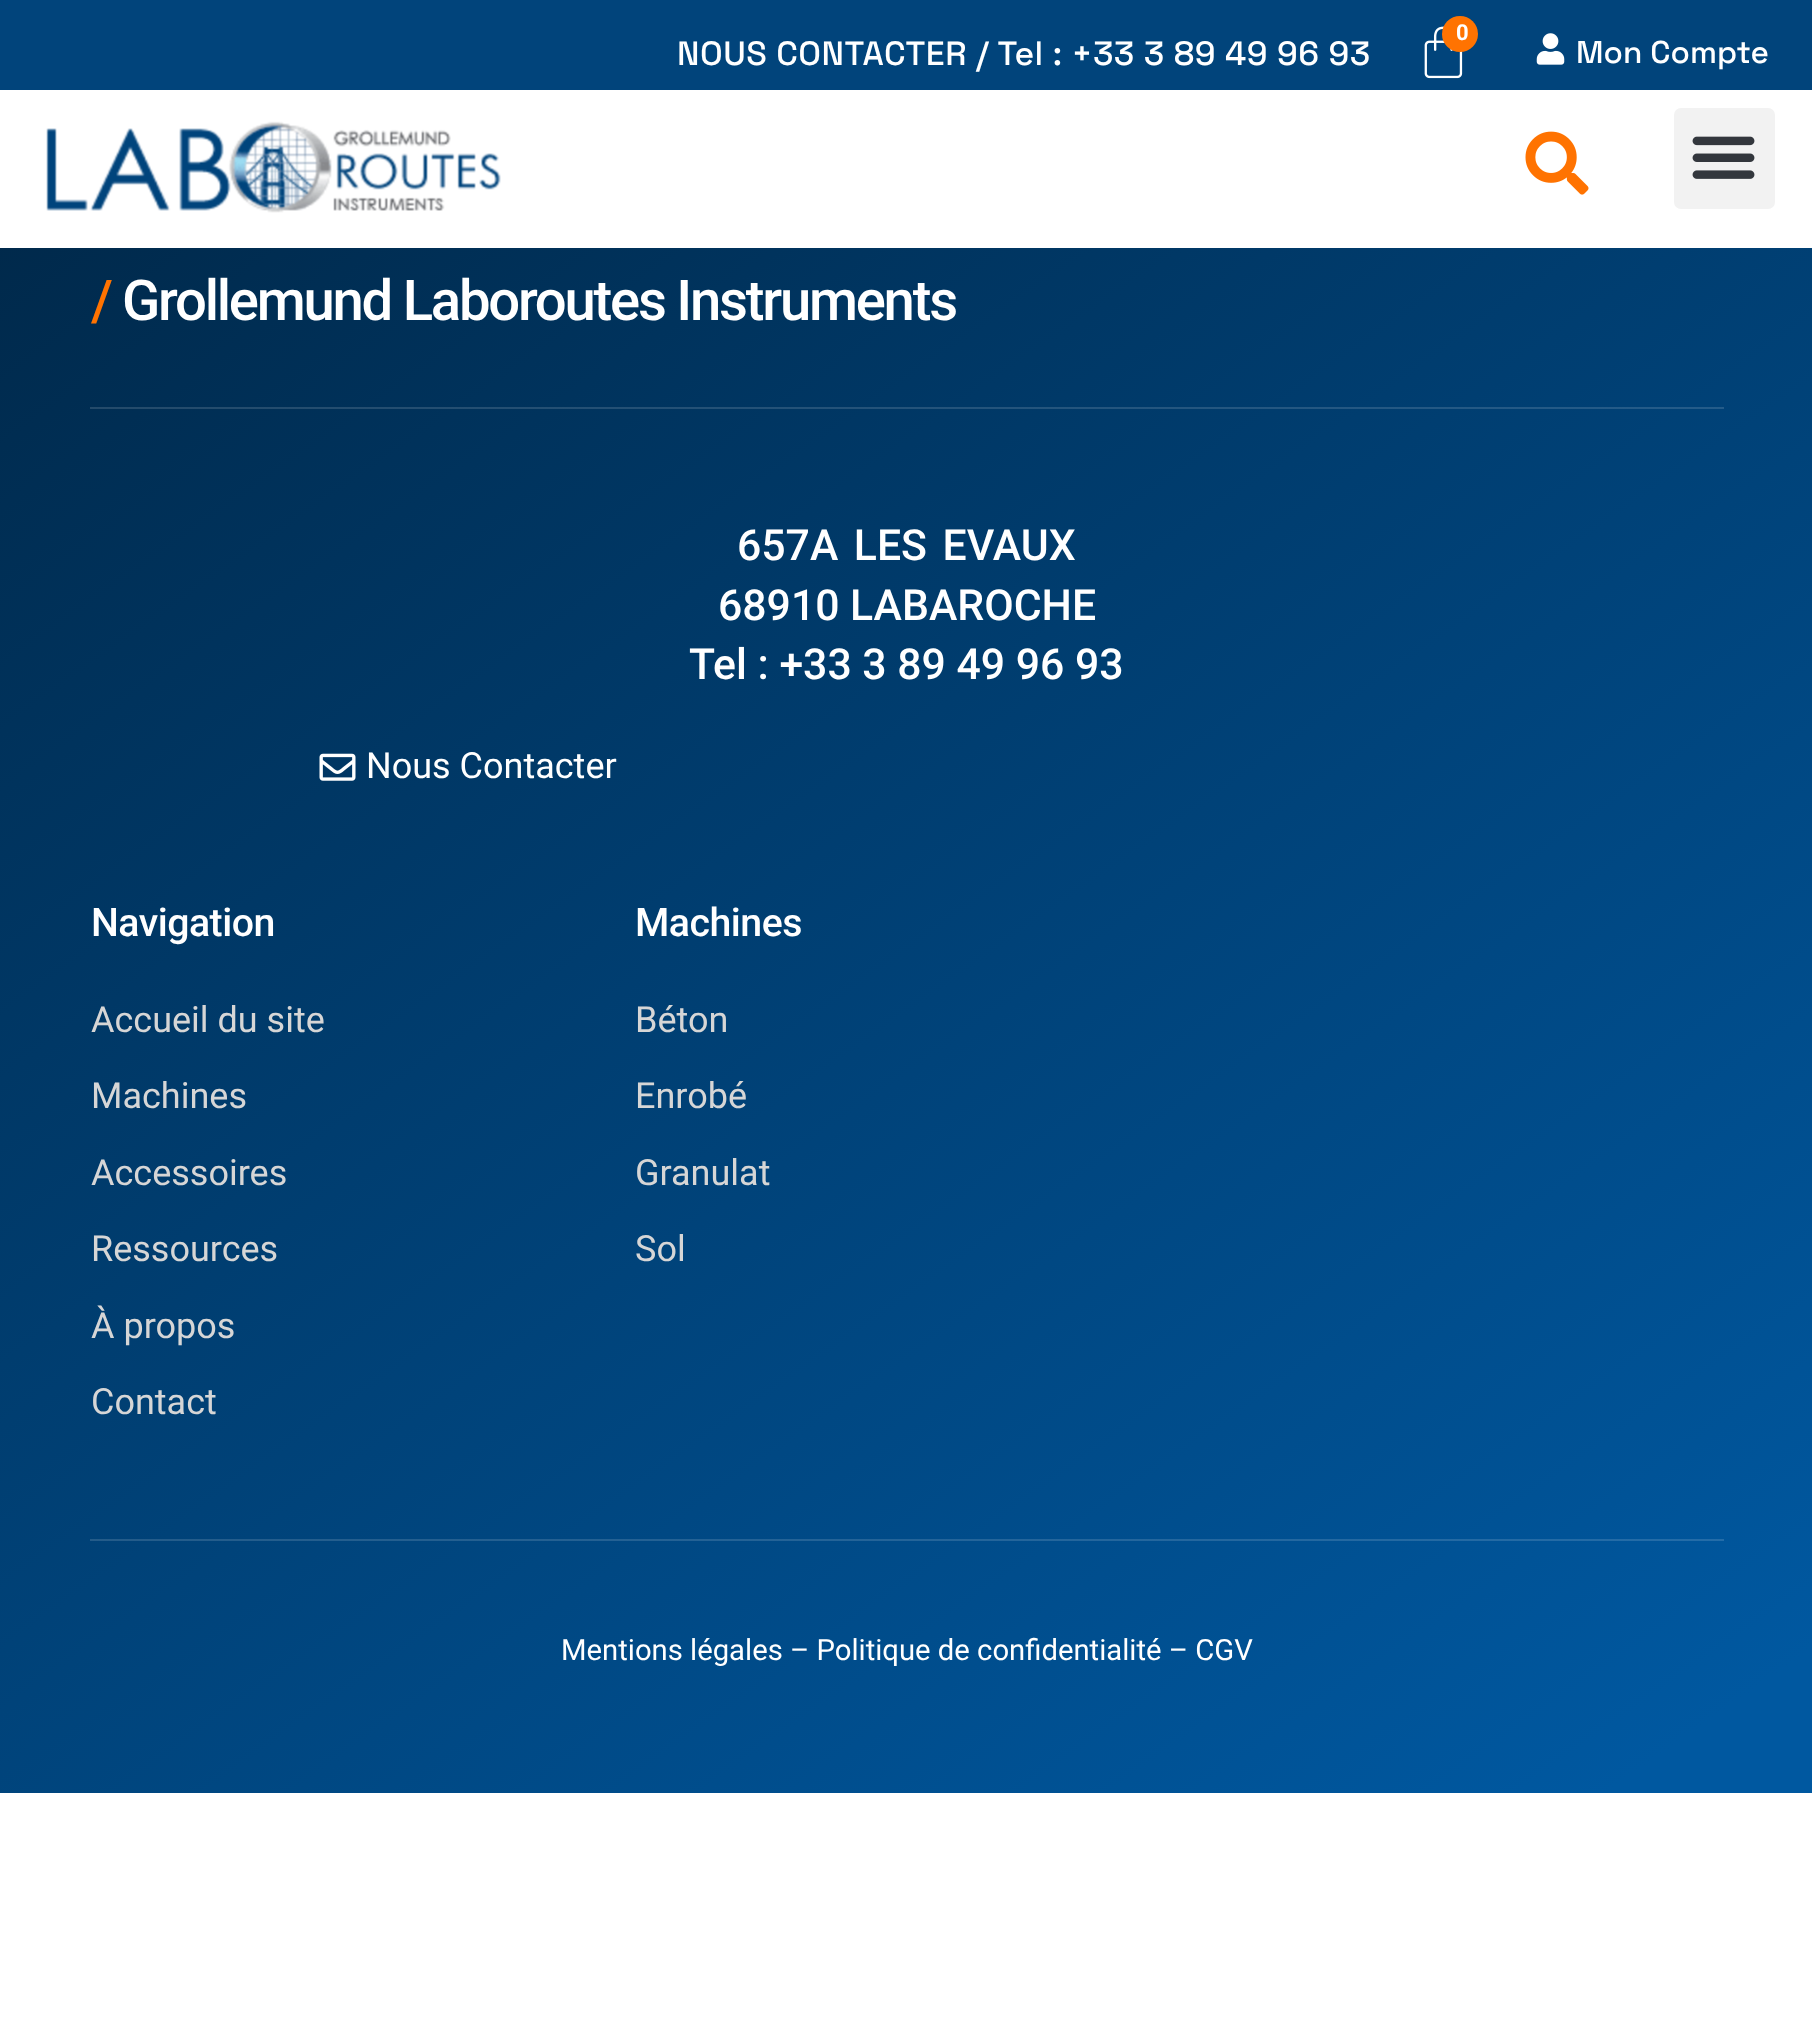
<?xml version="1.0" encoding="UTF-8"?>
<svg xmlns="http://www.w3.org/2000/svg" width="1812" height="2041">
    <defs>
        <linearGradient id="g1" gradientUnits="userSpaceOnUse" x1="225" y1="4.3" x2="1588" y2="1951"><stop offset="0" stop-color="#002849"/><stop offset="0.95" stop-color="#0058A0"/></linearGradient>
        <linearGradient id="g2" gradientUnits="userSpaceOnUse" x1="225" y1="4.3" x2="1588" y2="1951"><stop offset="0" stop-color="#244662"/><stop offset="0.95" stop-color="#246FAD"/></linearGradient>
    </defs>
    <rect width="100%" height="100%" fill="#FFFFFF"/>
    <rect x="0" y="0" width="1812" height="90" fill="#01447B"/>
    <image x="1424" y="26" width="39" height="53" href="img_01.png"/>
    <circle cx="1460" cy="34" r="18" fill="#FF7301"/>
    <text x="1456" y="40" font-family="Roboto" font-size="22" font-weight="700" letter-spacing="-2.25" fill="#FFFFFF">0</text>
    <text x="677" y="65" font-family="Space Grotesk" font-size="33.75" font-weight="500" letter-spacing="0.45" fill="#FFFFFF">NOUS CONTACTER / Tel : +33 3 89 49 96 93</text>
    <image x="1536" y="33" width="29" height="32" href="img_02.png"/>
    <text x="1576" y="63" font-family="Space Grotesk" font-size="31.5" font-weight="500" fill="#FFFFFF">Mon Compte</text>
    <image x="46" y="121" width="455" height="92" href="img_03.png"/>
    <image x="1525" y="131" width="64" height="64" href="img_04.png"/>
    <rect x="1674" y="108" width="101" height="101" rx="7" fill="#F2F2F2"/>
    <image x="1692" y="136" width="63" height="43" href="img_05.png"/>
    <rect x="0" y="248" width="1812" height="1545" fill="url(#g1)"/>
    <rect x="90" y="1539" width="1634" height="2" fill="url(#g2)"/>
    <rect x="90" y="407" width="1634" height="2" fill="url(#g2)"/>
    <text x="91" y="320" font-family="Roboto" font-size="56.25" font-weight="500" letter-spacing="-2.25" fill="#FF7301">/</text>
    <text x="122" y="320" font-family="Roboto" font-size="56.25" font-weight="500" letter-spacing="-2.25" fill="#FFFFFF">Grollemund Laboroutes Instruments</text>
    <text x="737" y="560" word-spacing="5" font-family="Roboto" font-size="42.75" font-weight="500" fill="#FFFFFF">657A LES EVAUX</text>
    <text x="718" y="620" font-family="Roboto" font-size="42.75" font-weight="500" fill="#FFFFFF">68910 LABAROCHE</text>
    <text x="689" y="679" font-family="Roboto" font-size="42.75" font-weight="500" fill="#FFFFFF">Tel : +33 3 89 49 96 93</text>
    <image x="319" y="753" width="37" height="28" href="img_06.png"/>
    <text x="366" y="778" font-family="Roboto" font-size="36" fill="#FFFFFF">Nous Contacter</text>
    <text x="91" y="936" font-family="Roboto" font-size="39.25" font-weight="500" letter-spacing="-0.5" fill="#FFFFFF">Navigation</text>
    <text x="91" y="1032" font-family="Roboto" font-size="36" fill="#D6D6D6">Accueil du site</text>
    <text x="91" y="1108" font-family="Roboto" font-size="36" fill="#D6D6D6">Machines</text>
    <text x="91" y="1185" font-family="Roboto" font-size="36" fill="#D6D6D6">Accessoires</text>
    <text x="91" y="1261" font-family="Roboto" font-size="36" fill="#D6D6D6">Ressources</text>
    <text x="91" y="1338" font-family="Roboto" font-size="36" fill="#D6D6D6">À propos</text>
    <text x="91" y="1414" font-family="Roboto" font-size="36" fill="#D6D6D6">Contact</text>
    <text x="635" y="936" font-family="Roboto" font-size="39.25" font-weight="500" letter-spacing="-0.5" fill="#FFFFFF">Machines</text>
    <text x="635" y="1032" font-family="Roboto" font-size="36" fill="#D6D6D6">Béton</text>
    <text x="635" y="1108" font-family="Roboto" font-size="36" fill="#D6D6D6">Enrobé</text>
    <text x="635" y="1185" font-family="Roboto" font-size="36" fill="#D6D6D6">Granulat</text>
    <text x="635" y="1261" font-family="Roboto" font-size="36" fill="#D6D6D6">Sol</text>
    <text x="561" y="1660" font-family="Roboto" font-size="29.25" fill="#FFFFFF">Mentions légales – Politique de confidentialité – CGV</text>
</svg>
